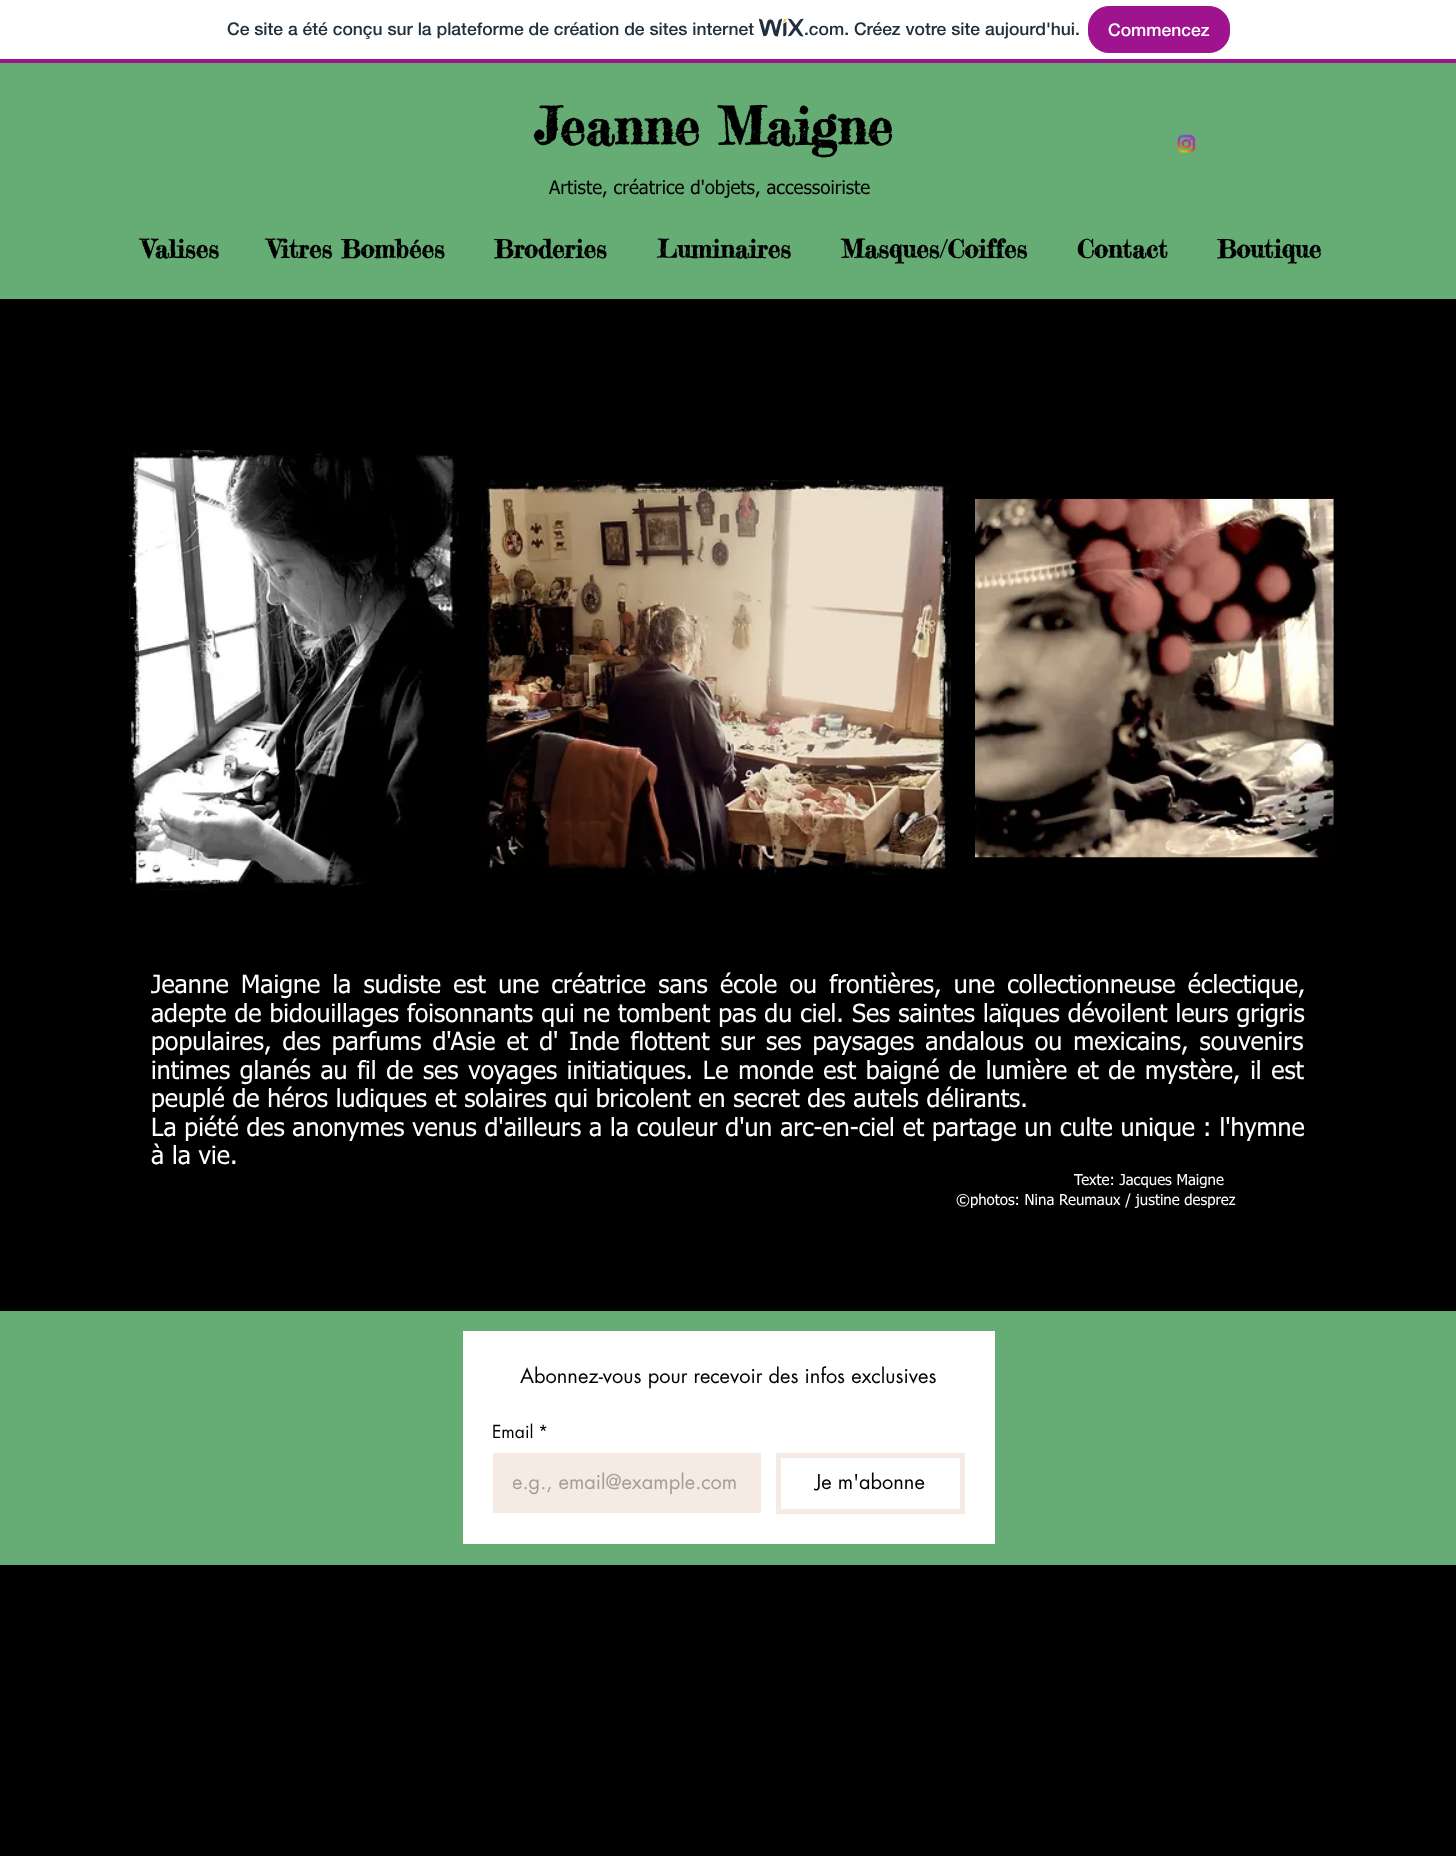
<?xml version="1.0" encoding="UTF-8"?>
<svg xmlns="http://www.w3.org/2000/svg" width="1456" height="1856">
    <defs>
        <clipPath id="clip1"><rect x="513" y="1469" width="226" height="27"/></clipPath>
    </defs>
    <rect width="100%" height="100%" fill="#FFFFFF"/>
    <rect x="0" y="59" width="1456" height="4" fill="#A0138E"/>
    <text x="227" y="35" font-family="'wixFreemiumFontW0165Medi'" font-size="17.5" font-weight="500" fill="#20303C">Ce site a été conçu sur la plateforme de création de sites internet</text>
    <image x="759" y="18" width="45" height="19" href="img_01.png"/>
    <text x="804" y="35" font-family="'wixFreemiumFontW0165Medi'" font-size="17.5" font-weight="500" fill="#20303C">.com. Créez votre site aujourd'hui.</text>
    <rect x="1088.5" y="6.5" width="141" height="46" rx="20.5" fill="#A0138E" stroke="#A0138E"/>
    <text x="1108" y="36" font-family="'wixFreemiumFontW0165Medi'" font-size="17.5" font-weight="500" fill="#FFFFFF">Commencez</text>
    <rect x="0" y="63" width="1456" height="236" fill="#65AD75"/>
    <text x="534" y="145" font-family="Fredericka the Great" font-size="51.25" font-weight="700" fill="#000000">Jeanne Maigne</text>
    <image x="1177" y="134" width="19" height="19" href="img_02.png"/>
    <text x="549" y="194" font-family="tahoma" font-size="18.75" fill="#000000">Artiste, créatrice d'objets, accessoiriste</text>
    <text x="142" y="258" font-family="Fredericka the Great" font-size="25" font-weight="700" fill="#000000">Valises</text>
    <text x="268" y="258" font-family="Fredericka the Great" font-size="25" font-weight="700" fill="#000000">Vitres Bombées</text>
    <text x="494" y="258" font-family="Fredericka the Great" font-size="25" font-weight="700" fill="#000000">Broderies</text>
    <text x="657" y="258" font-family="Fredericka the Great" font-size="25" font-weight="700" fill="#000000">Luminaires</text>
    <text x="841" y="258" font-family="Fredericka the Great" font-size="25" font-weight="700" fill="#000000">Masques/Coiffes</text>
    <text x="1077" y="258" font-family="Fredericka the Great" font-size="25" font-weight="700" fill="#000000">Contact</text>
    <text x="1217" y="258" font-family="Fredericka the Great" font-size="25" font-weight="700" fill="#000000">Boutique</text>
    <rect x="0" y="299" width="1456" height="1557" fill="#000000"/>
    <image x="128" y="450" width="331" height="440" href="img_03.png"/>
    <image x="481" y="480" width="471" height="395" href="img_04.png"/>
    <image x="975" y="498" width="359" height="360" href="img_05.png"/>
    <text font-family="tahoma" font-size="25" fill="#FFFFFF">
        <tspan x="151" y="993" word-spacing="4.5">Jeanne Maigne la sudiste est une créatrice sans école ou frontières, une collectionneuse éclectique,</tspan>
        <tspan x="151" y="1022" word-spacing="0.25">adepte de bidouillages foisonnants qui ne tombent pas du ciel. Ses saintes laïques dévoilent leurs grigris</tspan>
        <tspan x="151" y="1050" word-spacing="3.25">populaires, des parfums d'Asie et d' Inde flottent sur ses paysages andalous ou mexicains, souvenirs</tspan>
        <tspan x="151" y="1079" word-spacing="1.9">intimes glanés au fil de ses voyages initiatiques. Le monde est baigné de lumière et de mystère, il est</tspan>
        <tspan x="151" y="1107">peuplé de héros ludiques et solaires qui bricolent en secret des autels délirants.</tspan>
        <tspan x="151" y="1136">La piété des anonymes venus d'ailleurs a la couleur d'un arc-en-ciel et partage un culte unique : l'hymne</tspan>
        <tspan x="151" y="1164">à la vie.</tspan>
    </text>
    <text x="1074" y="1185" font-family="tahoma" font-size="15" fill="#FFFFFF">Texte: Jacques Maigne</text>
    <text x="956" y="1205" font-family="tahoma" font-size="15" fill="#FFFFFF">©photos: Nina Reumaux / justine desprez</text>
    <rect x="0" y="1311" width="1456" height="254" fill="#65AD75"/>
    <rect x="463" y="1331" width="532" height="213" fill="#FFFFFF"/>
    <text x="520" y="1383" font-family="futura" font-size="20" fill="#000000">Abonnez-vous pour recevoir des infos exclusives</text>
    <text x="492" y="1438" font-family="futura" font-size="17.5" fill="#000000">Email</text>
    <text x="538" y="1438" font-family="futura" font-size="17.5" fill="#000000">*</text>
    <rect x="493" y="1453" width="268" height="60" fill="#F6EBE4"/>
    <g clip-path="url(#clip1)">
        <text x="512" y="1489" font-family="futura" font-size="20" fill="#A89D96">e.g., email@example.com</text>
    </g>
    <rect x="778.5" y="1455.5" width="184" height="56" fill="none" stroke="#F6EBE4" stroke-width="5"/>
    <text x="815" y="1489" font-family="futura" font-size="20" fill="#000000">Je m'abonne</text>
</svg>
